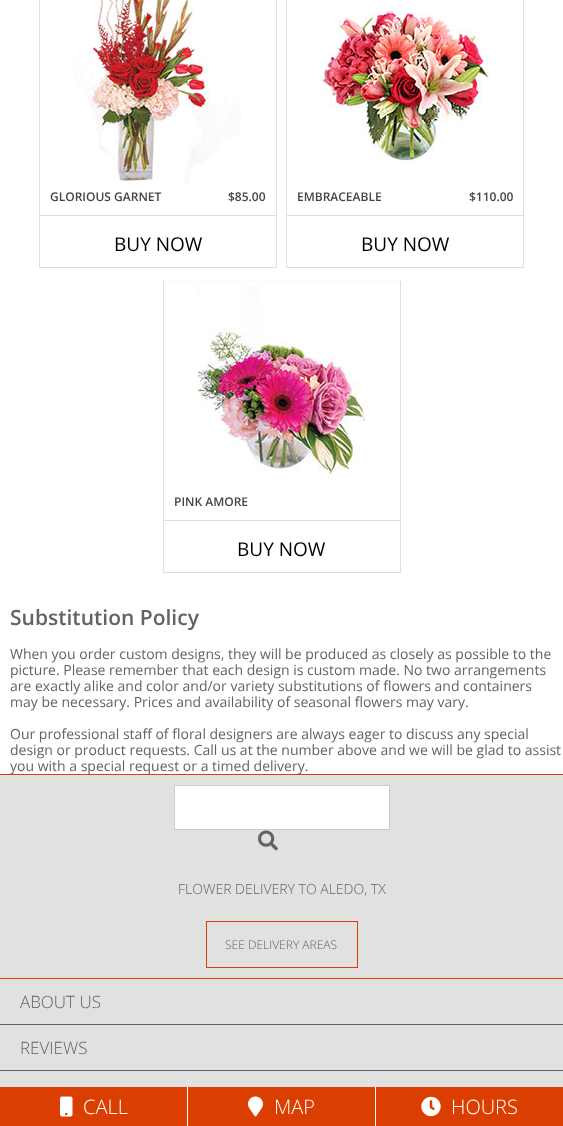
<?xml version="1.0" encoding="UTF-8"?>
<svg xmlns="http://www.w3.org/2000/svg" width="563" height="1126">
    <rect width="100%" height="100%" fill="#FFFFFF"/>
    <rect x="276" y="0" width="1" height="268" fill="#E2DEDD"/>
    <rect x="39" y="267" width="238" height="1" fill="#E2DEDD"/>
    <rect x="39" y="0" width="1" height="268" fill="#E2DEDD"/>
    <image x="74" y="0" width="167" height="184" href="img_01.png"/>
    <text x="50" y="201" font-family="Open Sans" font-size="12" font-weight="600" fill="#444444">GLORIOUS GARNET</text>
    <text x="228" y="201" font-family="Open Sans" font-size="12" font-weight="600" fill="#444444">$85.00</text>
    <rect x="40" y="215" width="236" height="1" fill="#E2DEDD"/>
    <text x="114" y="251" font-family="Open Sans" font-size="19" fill="#000000">BUY NOW</text>
    <rect x="523" y="0" width="1" height="268" fill="#E2DEDD"/>
    <rect x="286" y="267" width="238" height="1" fill="#E2DEDD"/>
    <rect x="286" y="0" width="1" height="268" fill="#E2DEDD"/>
    <image x="322" y="8" width="167" height="156" href="img_02.png"/>
    <text x="297" y="201" font-family="Open Sans" font-size="12" font-weight="600" fill="#444444">EMBRACEABLE</text>
    <text x="469" y="201" font-family="Open Sans" font-size="12" font-weight="600" fill="#444444">$110.00</text>
    <rect x="287" y="215" width="236" height="1" fill="#E2DEDD"/>
    <text x="361" y="251" font-family="Open Sans" font-size="19" fill="#000000">BUY NOW</text>
    <rect x="163" y="281" width="238" height="1" fill="#F9F9F9"/>
    <rect x="400" y="281" width="1" height="292" fill="#E2DEDD"/>
    <rect x="163" y="572" width="238" height="1" fill="#E2DEDD"/>
    <rect x="163" y="281" width="1" height="292" fill="#E2DEDD"/>
    <image x="198" y="286" width="167" height="192" href="img_03.png"/>
    <text x="174" y="506" font-family="Open Sans" font-size="12" font-weight="600" fill="#444444">PINK AMORE</text>
    <rect x="164" y="520" width="236" height="1" fill="#E2DEDD"/>
    <text x="237" y="556" font-family="Open Sans" font-size="19" fill="#000000">BUY NOW</text>
    <text x="10" y="625" font-family="Open Sans" font-size="21" font-weight="600" fill="#636363">Substitution Policy</text>
    <text font-family="Open Sans" font-size="14" fill="#636363">
        <tspan x="10" y="659">When you order custom designs, they will be produced as closely as possible to the</tspan>
        <tspan x="10" y="675">picture. Please remember that each design is custom made. No two arrangements</tspan>
        <tspan x="10" y="691">are exactly alike and color and/or variety substitutions of flowers and containers</tspan>
        <tspan x="10" y="707">may be necessary. Prices and availability of seasonal flowers may vary.</tspan>
    </text>
    <text font-family="Open Sans" font-size="14" fill="#636363">
        <tspan x="10" y="739">Our professional staff of floral designers are always eager to discuss any special</tspan>
        <tspan x="10" y="755">design or product requests. Call us at the number above and we will be glad to assist</tspan>
    </text>
    <rect x="0" y="774" width="563" height="1" fill="#DA3E00"/>
    <text x="10" y="771" font-family="Open Sans" font-size="14" fill="#636363">you with a special request or a timed delivery.</text>
    <rect x="0" y="775" width="563" height="203" fill="#E1E1E1"/>
    <rect x="0" y="978" width="563" height="1" fill="#DA3E00"/>
    <rect x="174.5" y="785.5" width="215" height="44" fill="#FFFFFF" stroke="#CCCCCC"/>
    <image x="258" y="830" width="20" height="21" href="img_04.png"/>
    <text x="178" y="894" font-family="Open Sans" font-size="14" font-weight="300" fill="#636363">FLOWER DELIVERY TO ALEDO, TX</text>
    <rect x="206.5" y="921.5" width="151" height="46" fill="none" stroke="#DA3E00"/>
    <text x="225" y="949" font-family="Open Sans" font-size="12" font-weight="300" fill="#636363">SEE DELIVERY AREAS</text>
    <rect x="0" y="979" width="563" height="108" fill="#E1E1E1"/>
    <rect x="0" y="1024" width="563" height="1" fill="#636363"/>
    <text x="20" y="1008" font-family="Open Sans" font-size="17" font-weight="300" fill="#636363">ABOUT US</text>
    <rect x="0" y="1070" width="563" height="1" fill="#636363"/>
    <text x="20" y="1054" font-family="Open Sans" font-size="17" font-weight="300" fill="#636363">REVIEWS</text>
    <rect x="0" y="1087" width="187" height="39" fill="#DA3E00"/>
    <image x="60" y="1096" width="13" height="21" href="img_05.png"/>
    <text x="83" y="1114" font-family="Open Sans" font-size="20" font-weight="300" fill="#FFFFFF">CALL</text>
    <rect x="188" y="1087" width="187" height="39" fill="#DA3E00"/>
    <image x="248" y="1096" width="15" height="21" href="img_06.png"/>
    <text x="274" y="1114" font-family="Open Sans" font-size="20" font-weight="300" fill="#FFFFFF">MAP</text>
    <rect x="376" y="1087" width="187" height="39" fill="#DA3E00"/>
    <image x="421" y="1096" width="20" height="21" href="img_07.png"/>
    <text x="451" y="1114" font-family="Open Sans" font-size="20" font-weight="300" fill="#FFFFFF">HOURS</text>
</svg>
